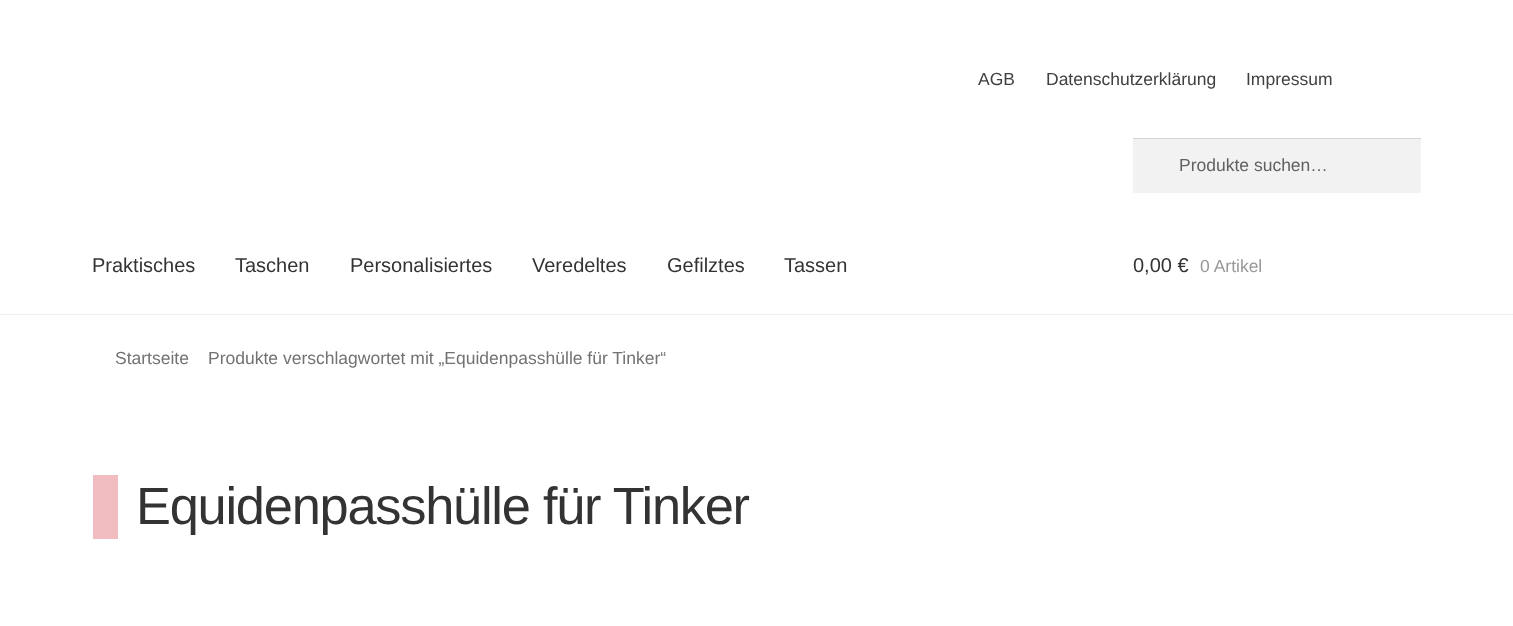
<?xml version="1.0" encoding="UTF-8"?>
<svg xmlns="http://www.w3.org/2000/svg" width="1513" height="626">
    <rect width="100%" height="100%" fill="#FFFFFF"/>
    <rect x="0" y="314" width="1513" height="1" fill="#F0F0F0"/>
    <text x="978" y="85" font-family="Liberation Sans" font-size="17.5" fill="#404040">AGB</text>
    <text x="1046" y="85" font-family="Liberation Sans" font-size="17.5" fill="#404040">Datenschutzerklärung</text>
    <text x="1246" y="85" font-family="Liberation Sans" font-size="17.5" fill="#404040">Impressum</text>
    <rect x="1133" y="139" width="288" height="54" fill="#F2F2F2"/>
    <rect x="1133" y="138" width="288" height="1" fill="#D4D4D4"/>
    <text x="1179" y="171" font-family="Liberation Sans" font-size="17.5" fill="#616161">Produkte suchen…</text>
    <text x="92" y="272" font-family="Liberation Sans" font-size="20" fill="#333333">Praktisches</text>
    <text x="235" y="272" font-family="Liberation Sans" font-size="20" fill="#333333">Taschen</text>
    <text x="350" y="272" font-family="Liberation Sans" font-size="20" fill="#333333">Personalisiertes</text>
    <text x="532" y="272" font-family="Liberation Sans" font-size="20" fill="#333333">Veredeltes</text>
    <text x="667" y="272" font-family="Liberation Sans" font-size="20" fill="#333333">Gefilztes</text>
    <text x="784" y="272" font-family="Liberation Sans" font-size="20" fill="#333333">Tassen</text>
    <text x="1133" y="272" font-family="Liberation Sans" font-size="20" fill="#333333">0,00 €</text>
    <text x="1200" y="272" font-family="Liberation Sans" font-size="17.5" fill="#999999">0 Artikel</text>
    <text x="115" y="364" font-family="Liberation Sans" font-size="17.5" fill="#727272">Startseite</text>
    <text x="208" y="364" font-family="Liberation Sans" font-size="17.5" fill="#727272">Produkte verschlagwortet mit „Equidenpasshülle für Tinker“</text>
    <rect x="93" y="475" width="25" height="64" fill="#F0BCC0"/>
    <text x="136" y="524" font-family="Liberation Sans" font-size="52.4" letter-spacing="-1.25" fill="#333333">Equidenpasshülle für Tinker</text>
</svg>
